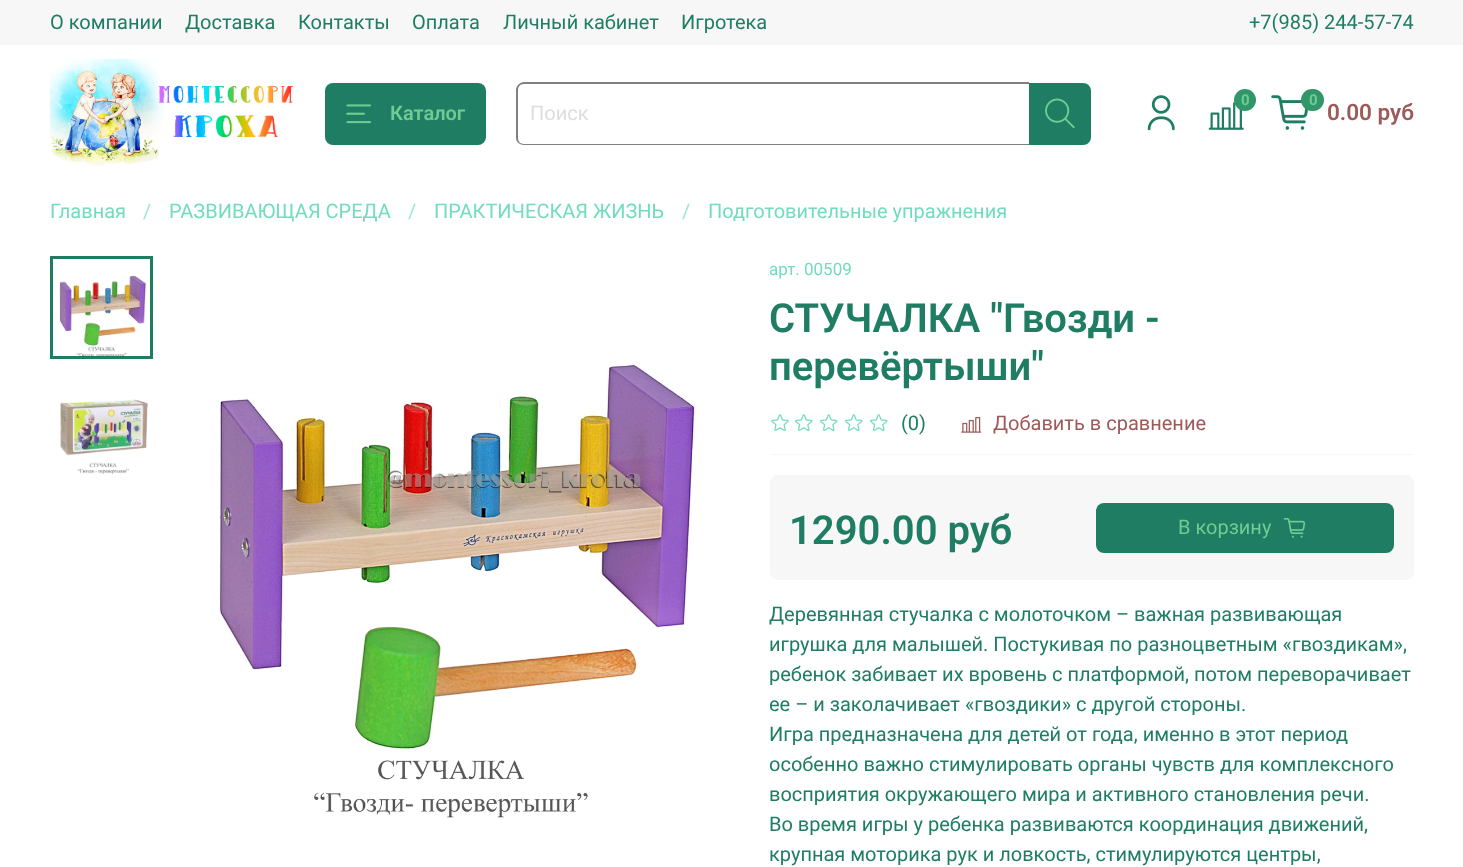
<?xml version="1.0" encoding="UTF-8"?>
<svg xmlns="http://www.w3.org/2000/svg" width="1463" height="867">
    <rect width="100%" height="100%" fill="#FFFFFF"/>
    <rect x="0" y="0" width="1463" height="45" fill="#F7F7F7"/>
    <text x="50" y="29" font-family="Roboto" font-size="20" fill="#1F7D63">О компании</text>
    <text x="185" y="29" font-family="Roboto" font-size="20" fill="#1F7D63">Доставка</text>
    <text x="298" y="29" font-family="Roboto" font-size="20" fill="#1F7D63">Контакты</text>
    <text x="412" y="29" font-family="Roboto" font-size="20" fill="#1F7D63">Оплата</text>
    <text x="503" y="29" font-family="Roboto" font-size="20" fill="#1F7D63">Личный кабинет</text>
    <text x="681" y="29" font-family="Roboto" font-size="20" fill="#1F7D63">Игротека</text>
    <text x="1249" y="29" font-family="Roboto" font-size="20" fill="#1F7D63">+7(985) 244-57-74</text>
    <image x="50" y="58" width="243" height="108" href="img_01.png"/>
    <rect x="325" y="83" width="161" height="62" rx="8" fill="#1F7D63"/>
    <image x="346" y="104" width="25" height="20" href="img_02.png"/>
    <text x="390" y="120" font-family="Roboto" font-size="20" font-weight="600" fill="#70CC93">Каталог</text>
    <path d="M 524 82 H 1029 V 145 H 524 C 520 145 516 142 516 138 V 90 C 516 86 520 82 524 82 Z M 524 84 H 1029 V 144 H 524 C 520 144 518 141 518 138 V 90 C 518 87 520 84 524 84 Z" fill="#808080" fill-rule="evenodd"/>
    <text x="530" y="120" font-family="Roboto" font-size="20" fill="#DDDDDD">Поиск</text>
    <path d="M 1029 83 H 1083 C 1087.5 83 1091 86.5 1091 91 V 137 C 1091 141.5 1087.5 145 1083 145 H 1029 Z" fill="#1F7D63"/>
    <image x="1045" y="98" width="30" height="31" href="img_03.png"/>
    <image x="1147" y="95" width="28" height="36" href="img_04.png"/>
    <image x="1208" y="102" width="36" height="28" href="img_05.png"/>
    <circle cx="1245" cy="100" r="11" fill="#31966A"/>
    <text x="1241" y="105" font-family="Roboto" font-size="15" font-weight="700" fill="#70CC93">0</text>
    <image x="1271" y="95" width="37" height="35" href="img_06.png"/>
    <rect x="1301" y="89" width="23" height="22" rx="11" fill="#31966A"/>
    <text x="1309" y="105" font-family="Roboto" font-size="15" font-weight="700" fill="#70CC93">0</text>
    <text x="1327" y="120" font-family="Roboto" font-size="22.5" font-weight="600" fill="#9E5959">0.00 руб</text>
    <text x="50" y="218" font-family="Roboto" font-size="20" fill="#72DCBE">Главная</text>
    <text x="143" y="218" font-family="Roboto" font-size="20" fill="#9CE7D2">/</text>
    <text x="169" y="218" font-family="Roboto" font-size="20" fill="#72DCBE">РАЗВИВАЮЩАЯ СРЕДА</text>
    <text x="408" y="218" font-family="Roboto" font-size="20" fill="#9CE7D2">/</text>
    <text x="434" y="218" font-family="Roboto" font-size="20" fill="#72DCBE">ПРАКТИЧЕСКАЯ ЖИЗНЬ</text>
    <text x="682" y="218" font-family="Roboto" font-size="20" fill="#9CE7D2">/</text>
    <text x="708" y="218" font-family="Roboto" font-size="20" fill="#72DCBE">Подготовительные упражнения</text>
    <image x="59" y="275" width="87" height="81" href="img_07.png"/>
    <rect x="51.5" y="257.5" width="100" height="100" fill="none" stroke="#1F7D63" stroke-width="3"/>
    <image x="60" y="399" width="88" height="75" href="img_08.png"/>
    <image x="219" y="364" width="476" height="454" href="img_09.png"/>
    <text x="769" y="275" font-family="Roboto" font-size="17" fill="#72DCBE">арт. 00509</text>
    <text font-family="Roboto" font-size="40" font-weight="600" fill="#1F7D63">
        <tspan x="769" y="332">СТУЧАЛКА "Гвозди -</tspan>
        <tspan x="769" y="380">перевёртыши"</tspan>
    </text>
    <rect x="770" y="454" width="644" height="1" fill="#F7F7F7"/>
    <image x="771" y="414" width="18" height="18" href="img_10.png"/>
    <image x="795" y="414" width="18" height="18" href="img_11.png"/>
    <image x="820" y="414" width="18" height="18" href="img_11.png"/>
    <image x="845" y="414" width="18" height="18" href="img_11.png"/>
    <image x="870" y="414" width="18" height="18" href="img_11.png"/>
    <text x="901" y="430" font-family="Roboto" font-size="20" fill="#1F7D63">(0)</text>
    <image x="961" y="417" width="21" height="16" href="img_12.png"/>
    <text x="993" y="430" font-family="Roboto" font-size="20" fill="#9E5959">Добавить в сравнение</text>
    <rect x="770" y="475" width="644" height="105" rx="8" fill="#F7F7F7"/>
    <text x="789" y="544" font-family="Roboto" font-size="40" font-weight="600" fill="#1F7D63">1290.00 руб</text>
    <rect x="1096" y="503" width="298" height="50" rx="8" fill="#1F7D63"/>
    <text x="1178" y="534" font-family="Roboto" font-size="20" fill="#70CC93">В корзину</text>
    <image x="1283" y="518" width="23" height="20" href="img_13.png"/>
    <text font-family="Roboto" font-size="20" fill="#1F7D63">
        <tspan x="769" y="621">Деревянная стучалка с молоточком – важная развивающая</tspan>
        <tspan x="769" y="651">игрушка для малышей. Постукивая по разноцветным «гвоздикам»,</tspan>
        <tspan x="769" y="681">ребенок забивает их вровень с платформой, потом переворачивает</tspan>
        <tspan x="769" y="711">ее – и заколачивает «гвоздики» с другой стороны.</tspan>
        <tspan x="769" y="741">Игра предназначена для детей от года, именно в этот период</tspan>
        <tspan x="769" y="771">особенно важно стимулировать органы чувств для комплексного</tspan>
        <tspan x="769" y="801">восприятия окружающего мира и активного становления речи.</tspan>
        <tspan x="769" y="831">Во время игры у ребенка развиваются координация движений,</tspan>
        <tspan x="769" y="861">крупная моторика рук и ловкость, стимулируются центры,</tspan>
    </text>
</svg>
